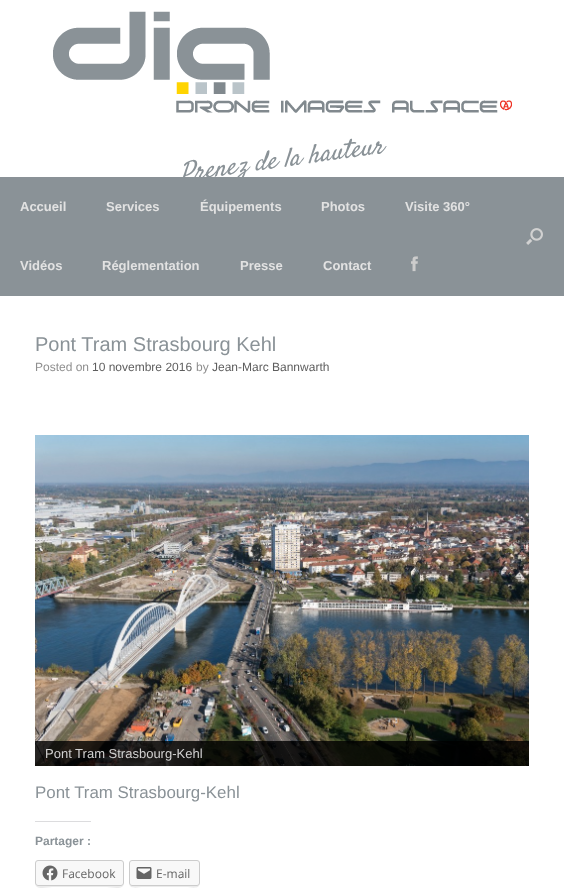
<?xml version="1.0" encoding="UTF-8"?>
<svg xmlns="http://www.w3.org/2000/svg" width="564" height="890">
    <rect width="100%" height="100%" fill="#FFFFFF"/>
    <image x="53" y="11" width="459" height="102" href="img_01.png"/>
    <text x="181" y="181" transform="rotate(-8 181 181)" font-family="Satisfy" font-size="26" font-style="italic" fill="#8A9297">Prenez de la hauteur</text>
    <rect x="0" y="177" width="564" height="119" fill="#8A9297"/>
    <text x="20" y="211" font-family="Liberation Sans" font-size="13" font-weight="700" fill="#E2E2E2">Accueil</text>
    <text x="106" y="211" font-family="Liberation Sans" font-size="13" font-weight="700" fill="#E2E2E2">Services</text>
    <text x="200" y="211" font-family="Liberation Sans" font-size="13" font-weight="700" fill="#E2E2E2">Équipements</text>
    <text x="321" y="211" font-family="Liberation Sans" font-size="13" font-weight="700" fill="#E2E2E2">Photos</text>
    <text x="405" y="211" font-family="Liberation Sans" font-size="13" font-weight="700" fill="#E2E2E2">Visite 360°</text>
    <text x="20" y="270" font-family="Liberation Sans" font-size="13" font-weight="700" fill="#E2E2E2">Vidéos</text>
    <text x="102" y="270" font-family="Liberation Sans" font-size="13" font-weight="700" fill="#E2E2E2">Réglementation</text>
    <text x="240" y="270" font-family="Liberation Sans" font-size="13" font-weight="700" fill="#E2E2E2">Presse</text>
    <text x="323" y="270" font-family="Liberation Sans" font-size="13" font-weight="700" fill="#E2E2E2">Contact</text>
    <image x="411" y="256" width="7" height="16" href="img_02.png"/>
    <image x="526" y="228" width="17" height="17" href="img_03.png"/>
    <text x="35" y="351" font-family="Liberation Sans" font-size="20" fill="#8A9297">Pont Tram Strasbourg Kehl</text>
    <text x="35" y="371" font-family="Liberation Sans" font-size="12" fill="#8F8F8F">Posted on</text>
    <text x="92" y="371" font-family="Liberation Sans" font-size="12" fill="#5E5E5E">10 novembre 2016</text>
    <text x="196" y="371" font-family="Liberation Sans" font-size="12" fill="#8F8F8F">by</text>
    <text x="212" y="371" font-family="Liberation Sans" font-size="12" fill="#5E5E5E">Jean-Marc Bannwarth</text>
    <image x="35" y="435" width="494" height="331" href="img_04.png"/>
    <rect x="35" y="741" width="494" height="25" fill="#000000" fill-opacity="0.8"/>
    <text x="45" y="758" font-family="Liberation Sans" font-size="13" fill="#D1D0D0">Pont Tram Strasbourg-Kehl</text>
    <text x="35" y="798" font-family="Liberation Sans" font-size="16.9" fill="#8A9297">Pont Tram Strasbourg-Kehl</text>
    <rect x="35" y="821" width="56" height="1" fill="#DCDCDE"/>
    <text x="35" y="845" font-family="Liberation Sans" font-size="12" font-weight="700" fill="#8A9297">Partager :</text>
    <path d="M 35 883 C 35 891 48 887 52 887 H 107 C 111 887 124 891 124 883 C 124 885 123 886 121 886 H 38 C 36 886 35 885 35 883 Z" fill="#EBEBEB"/>
    <rect x="35.5" y="860.5" width="88" height="25" rx="2.5" fill="#F8F8F8" stroke="#CCCCCC"/>
    <image x="42" y="865" width="16" height="16" href="img_05.png"/>
    <text x="62" y="878" font-family="Open Sans" font-size="12" fill="#656565">Facebook</text>
    <path d="M 129 883 C 129 890 139 887 143 887 H 186 C 190 887 200 890 200 883 C 200 885 199 886 197 886 H 132 C 130 886 129 885 129 883 Z" fill="#EBEBEB"/>
    <rect x="129.5" y="860.5" width="70" height="25" rx="2.5" fill="#F8F8F8" stroke="#CCCCCC"/>
    <image x="136" y="867" width="16" height="12" href="img_06.png"/>
    <text x="156" y="878" font-family="Open Sans" font-size="12" fill="#656565">E-mail</text>
</svg>
